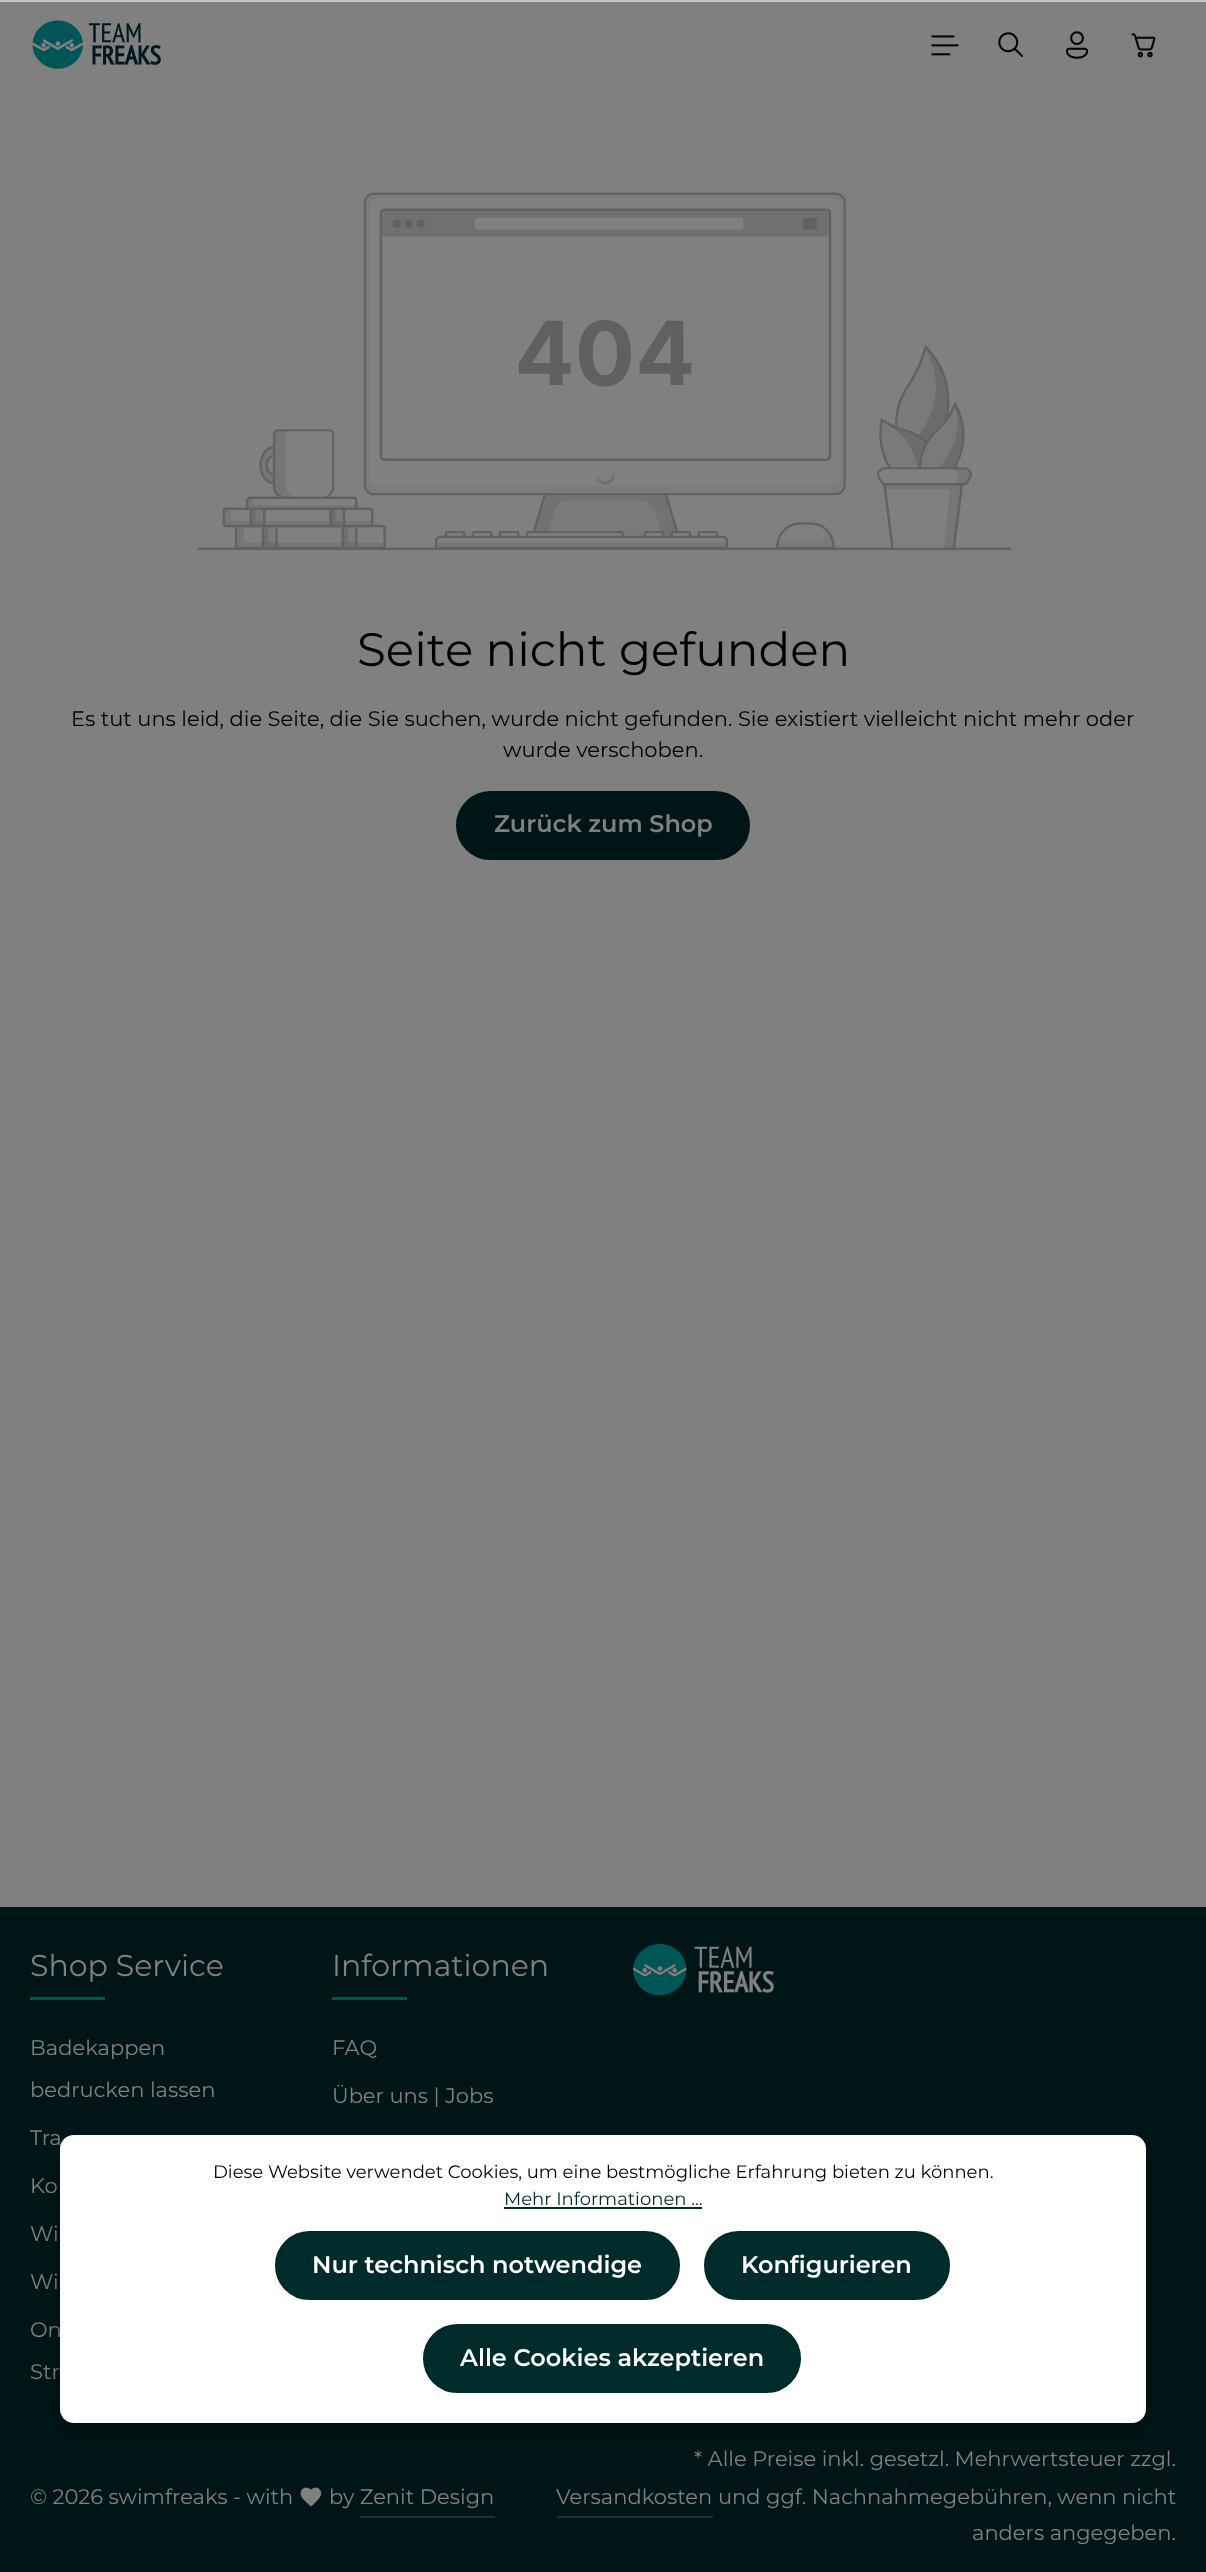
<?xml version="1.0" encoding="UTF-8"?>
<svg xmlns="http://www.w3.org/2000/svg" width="1206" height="2572">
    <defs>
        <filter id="blur1" x="-50%" y="-200%" width="200%" height="500%"><feGaussianBlur stdDeviation="12"/></filter>
    </defs>
    <rect width="100%" height="100%" fill="#808080"/>
    <image x="32" y="20" width="129" height="49" href="img_01.png"/>
    <image x="931" y="35" width="28" height="21" href="img_02.png"/>
    <image x="998" y="32" width="25" height="25" href="img_03.png"/>
    <image x="1066" y="31" width="22" height="28" href="img_04.png"/>
    <image x="1131" y="33" width="25" height="25" href="img_05.png"/>
    <image x="197" y="192" width="814" height="358" href="img_06.png"/>
    <text x="357" y="666" font-family="Montserrat" font-size="46.9" font-weight="100" fill="#000000">Seite nicht gefunden</text>
    <text x="71" y="726" font-family="Montserrat" font-size="21" font-weight="100" fill="#000000">Es tut uns leid, die Seite, die Sie suchen, wurde nicht gefunden. Sie existiert vielleicht nicht mehr oder</text>
    <text x="503" y="757" font-family="Montserrat" font-size="21" font-weight="100" fill="#000000">wurde verschoben.</text>
    <rect x="457" y="792" width="292" height="67" rx="33.5" fill="#001616" stroke="#001616" stroke-width="2"/>
    <text x="494" y="832" font-family="'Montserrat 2'" font-size="24" font-weight="100" fill="#808080">Zurück zum Shop</text>
    <rect x="0" y="1907" width="1206" height="665" fill="#001616"/>
    <text x="30" y="1976" font-family="Montserrat" font-size="30" font-weight="100" fill="#808080">Shop Service</text>
    <rect x="30" y="1997" width="75" height="3" fill="#005656"/>
    <text x="30" y="2055" font-family="Montserrat" font-size="21" font-weight="100" fill="#808080">Badekappen</text>
    <text x="30" y="2097" font-family="Montserrat" font-size="21" font-weight="100" fill="#808080">bedrucken lassen</text>
    <text x="30" y="2145" font-family="Montserrat" font-size="21" font-weight="100" fill="#808080">Tra</text>
    <text x="30" y="2193" font-family="Montserrat" font-size="21" font-weight="100" fill="#808080">Ko</text>
    <text x="30" y="2241" font-family="Montserrat" font-size="21" font-weight="100" fill="#808080">Wi</text>
    <text x="30" y="2289" font-family="Montserrat" font-size="21" font-weight="100" fill="#808080">Wi</text>
    <text x="30" y="2337" font-family="Montserrat" font-size="21" font-weight="100" fill="#808080">On</text>
    <text x="30" y="2379" font-family="Montserrat" font-size="21" font-weight="100" fill="#808080">Str</text>
    <text x="332" y="1976" font-family="Montserrat" font-size="30" font-weight="100" fill="#808080">Informationen</text>
    <rect x="332" y="1997" width="75" height="3" fill="#005656"/>
    <text x="332" y="2055" font-family="Montserrat" font-size="21" font-weight="100" fill="#808080">FAQ</text>
    <text x="332" y="2103" font-family="Montserrat" font-size="21" font-weight="100" fill="#808080">Über uns | Jobs</text>
    <image x="633" y="1944" width="141" height="51" href="img_07.png"/>
    <text x="30" y="2504" font-family="Montserrat" font-size="21" font-weight="100" fill="#808080">© 2026 swimfreaks - with</text>
    <image x="300" y="2487" width="22" height="20" href="img_08.png"/>
    <text x="329" y="2504" font-family="Montserrat" font-size="21" font-weight="100" fill="#808080">by Zenit Design</text>
    <rect x="360" y="2516" width="135" height="2" fill="#203030"/>
    <text x="694" y="2466" font-family="Montserrat" font-size="21" font-weight="100" fill="#808080">* Alle Preise inkl. gesetzl. Mehrwertsteuer zzgl.</text>
    <text x="556" y="2504" font-family="Montserrat" font-size="21" font-weight="100" fill="#808080">Versandkosten</text>
    <rect x="557" y="2516" width="156" height="2" fill="#203030"/>
    <text x="718" y="2504" font-family="Montserrat" font-size="21" font-weight="100" fill="#808080">und ggf. Nachnahmegebühren, wenn nicht</text>
    <text x="972" y="2540" font-family="Montserrat" font-size="21" font-weight="100" fill="#808080">anders angegeben.</text>
    <rect x="0" y="0" width="1206" height="2" fill="#C7C7CC"/>
    <rect x="60" y="2147" width="1086" height="288" rx="14" fill="#000000" fill-opacity="0.25" filter="url(#blur1)"/>
    <rect x="60" y="2135" width="1086" height="288" rx="14" fill="#FFFFFF"/>
    <text x="213" y="2178" font-family="Montserrat" font-size="18" font-weight="100" fill="#040406">Diese Website verwendet Cookies, um eine bestmögliche Erfahrung bieten zu können.</text>
    <text x="504" y="2205" font-family="Montserrat" font-size="18" font-weight="100" fill="#002B2B">Mehr Informationen ...</text>
    <rect x="504" y="2207" width="198" height="2" fill="#002B2B"/>
    <rect x="276" y="2232" width="403" height="67" rx="33.5" fill="#002B2B" stroke="#002B2B" stroke-width="2"/>
    <text x="312" y="2273" font-family="'Montserrat 2'" font-size="24" font-weight="100" fill="#FFFFFF">Nur technisch notwendige</text>
    <rect x="705" y="2232" width="244" height="67" rx="33.5" fill="#002B2B" stroke="#002B2B" stroke-width="2"/>
    <text x="741" y="2273" font-family="'Montserrat 2'" font-size="24" font-weight="100" fill="#FFFFFF">Konfigurieren</text>
    <rect x="424" y="2325" width="376" height="67" rx="33.5" fill="#002B2B" stroke="#002B2B" stroke-width="2"/>
    <text x="460" y="2366" font-family="'Montserrat 2'" font-size="24" font-weight="100" fill="#FFFFFF">Alle Cookies akzeptieren</text>
</svg>
